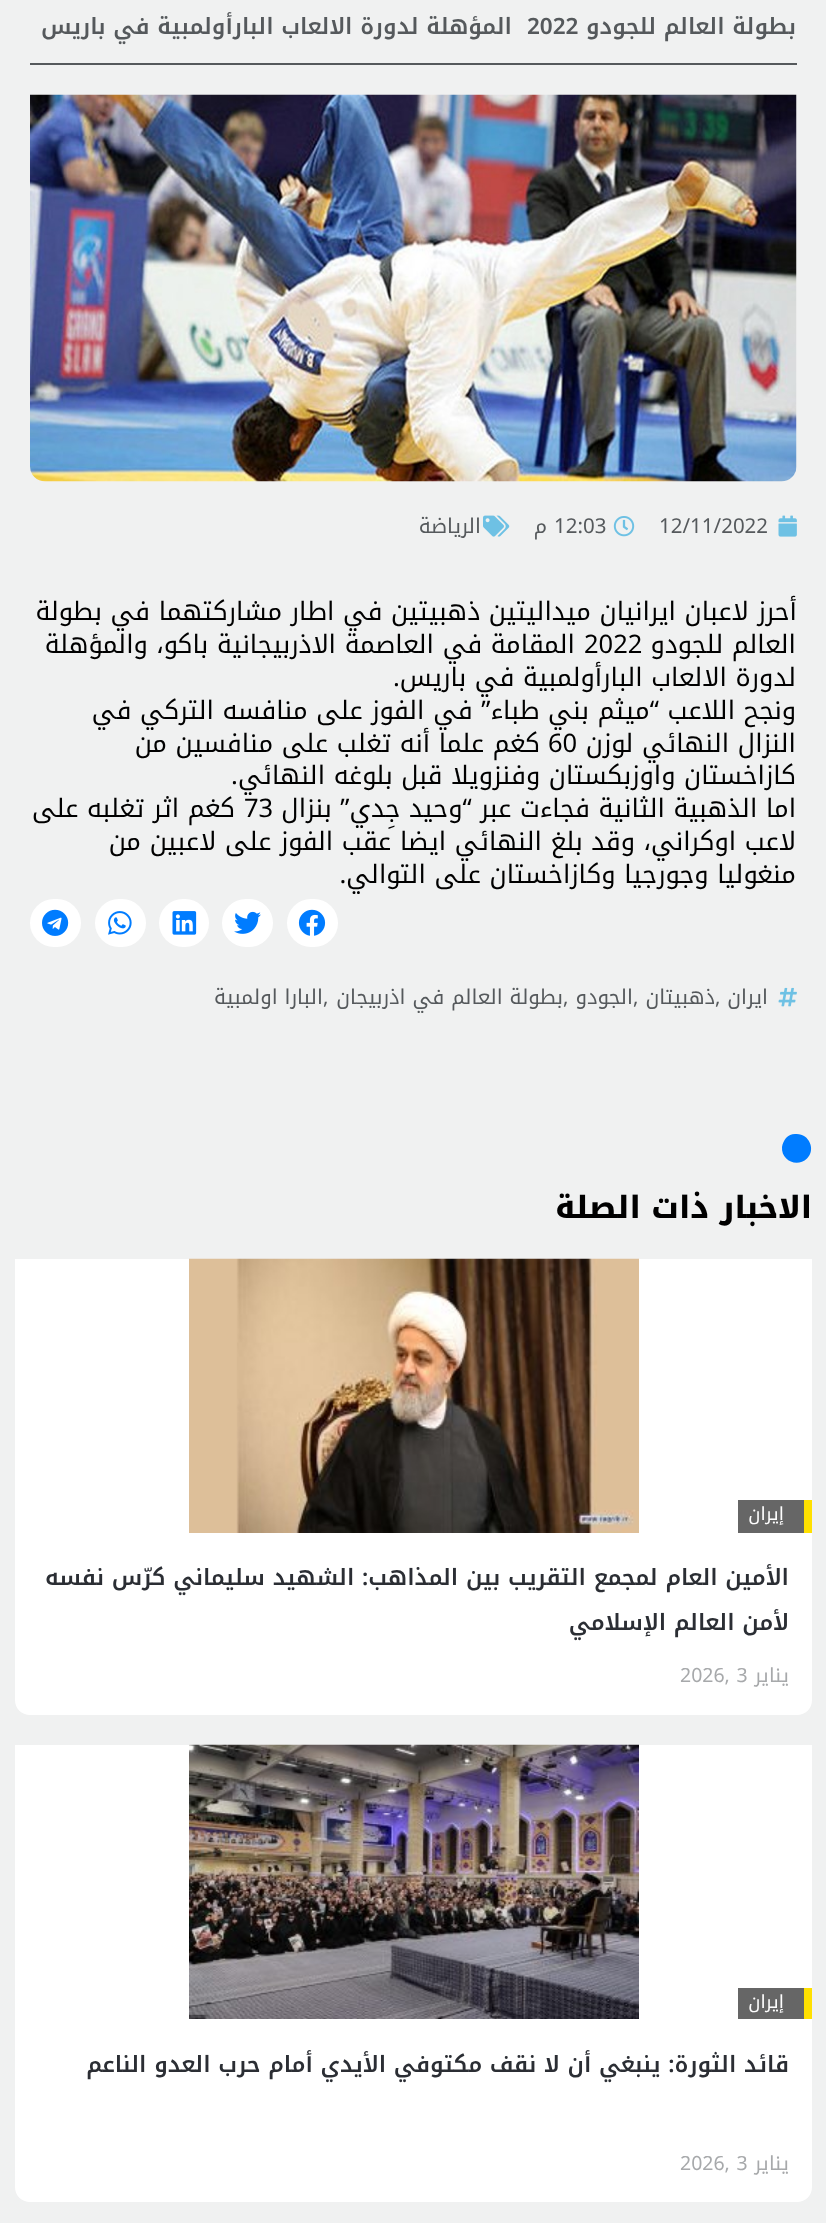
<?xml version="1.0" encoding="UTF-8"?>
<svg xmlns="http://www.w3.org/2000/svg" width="826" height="2223">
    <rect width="100%" height="100%" fill="#F0F1F1"/>
    <rect x="30" y="63" width="767" height="2" fill="#55595C"/>
    <text x="796" y="34" font-family="Noto Kufi Arabic" font-size="22.5" font-weight="600" direction="rtl" fill="#55595C">بطولة العالم للجودو</text>
    <text x="527" y="34" font-family="Noto Kufi Arabic" font-size="22.5" font-weight="600" fill="#55595C">2022</text>
    <text x="512" y="34" font-family="Noto Kufi Arabic" font-size="22.5" font-weight="600" direction="rtl" fill="#55595C">المؤهلة لدورة الالعاب البارأولمبية في باريس</text>
    <image x="30" y="94" width="767" height="388" href="img_01.png"/>
    <image x="778" y="515" width="19" height="22" href="img_02.png"/>
    <text x="659" y="533" font-family="Noto Kufi Arabic" font-size="20.5" fill="#55595C">12/11/2022</text>
    <image x="613" y="516" width="22" height="21" href="img_03.png"/>
    <text x="554" y="533" font-family="Noto Kufi Arabic" font-size="20.5" fill="#55595C">12:03</text>
    <text x="547" y="533" font-family="Noto Kufi Arabic" font-size="20.5" direction="rtl" fill="#55595C">م</text>
    <image x="483" y="515" width="27" height="22" href="img_04.png"/>
    <text x="481" y="533" font-family="Noto Kufi Arabic" font-size="20.5" direction="rtl" fill="#55595C">الرياضة</text>
    <text x="797" y="620" font-family="Noto Kufi Arabic" font-size="25.5" direction="rtl" fill="#000000">أحرز لاعبان ايرانيان ميداليتين ذهبيتين في اطار مشاركتهما في بطولة</text>
    <text x="796" y="653" font-family="Noto Kufi Arabic" font-size="25.5" direction="rtl" fill="#000000">العالم للجودو</text>
    <text x="584" y="653" font-family="Noto Kufi Arabic" font-size="25.5" fill="#000000">2022</text>
    <text x="575" y="653" font-family="Noto Kufi Arabic" font-size="25.5" direction="rtl" fill="#000000">المقامة في العاصمة الاذربيجانية باكو، والمؤهلة</text>
    <text font-family="Noto Kufi Arabic" font-size="25.5" direction="rtl" fill="#000000">
        <tspan x="796" y="686">لدورة الالعاب البارأولمبية في باريس.</tspan>
        <tspan x="796" y="719">ونجح اللاعب “ميثم بني طباء” في الفوز على منافسه التركي في</tspan>
        <tspan x="796" y="752">النزال النهائي لوزن</tspan>
    </text>
    <text x="548" y="752" font-family="Noto Kufi Arabic" font-size="25.5" fill="#000000">60</text>
    <text x="540" y="752" font-family="Noto Kufi Arabic" font-size="25.5" direction="rtl" fill="#000000">كغم علما أنه تغلب على منافسين من</text>
    <text font-family="Noto Kufi Arabic" font-size="25.5" direction="rtl" fill="#000000">
        <tspan x="796" y="784">كازاخستان واوزبكستان وفنزويلا قبل بلوغه النهائي.</tspan>
        <tspan x="796" y="817">اما الذهبية الثانية فجاءت عبر “وحيد جِدي” بنزال</tspan>
    </text>
    <text x="244" y="817" font-family="Noto Kufi Arabic" font-size="25.5" fill="#000000">73</text>
    <text x="235" y="817" font-family="Noto Kufi Arabic" font-size="25.5" direction="rtl" fill="#000000">كغم اثر تغلبه على</text>
    <text font-family="Noto Kufi Arabic" font-size="25.5" direction="rtl" fill="#000000">
        <tspan x="796" y="850">لاعب اوكراني، وقد بلغ النهائي ايضا عقب الفوز على لاعبين من</tspan>
        <tspan x="796" y="883">منغوليا وجورجيا وكازاخستان على التوالي.</tspan>
    </text>
    <rect x="287" y="899" width="51" height="48" rx="24" fill="#FFFFFF"/>
    <image x="298" y="909" width="28" height="27" href="img_05.png"/>
    <rect x="222" y="899" width="51" height="48" rx="24" fill="#FFFFFF"/>
    <image x="234" y="911" width="27" height="23" href="img_06.png"/>
    <rect x="159" y="899" width="50" height="48" rx="24" fill="#FFFFFF"/>
    <image x="172" y="911" width="25" height="24" href="img_07.png"/>
    <rect x="95" y="899" width="51" height="48" rx="24" fill="#FFFFFF"/>
    <image x="108" y="911" width="24" height="24" href="img_08.png"/>
    <rect x="30" y="899" width="51" height="48" rx="24" fill="#FFFFFF"/>
    <image x="42" y="909" width="27" height="27" href="img_09.png"/>
    <image x="778" y="987" width="19" height="20" href="img_10.png"/>
    <text x="768" y="1004" font-family="Noto Kufi Arabic" font-size="20.5" direction="rtl" fill="#55595C">ايران</text>
    <text x="715" y="1004" font-family="Noto Kufi Arabic" font-size="20.5" fill="#55595C">,</text>
    <text x="715" y="1004" font-family="Noto Kufi Arabic" font-size="20.5" direction="rtl" fill="#55595C">ذهبيتان</text>
    <text x="633" y="1004" font-family="Noto Kufi Arabic" font-size="20.5" fill="#55595C">,</text>
    <text x="633" y="1004" font-family="Noto Kufi Arabic" font-size="20.5" direction="rtl" fill="#55595C">الجودو</text>
    <text x="563" y="1004" font-family="Noto Kufi Arabic" font-size="20.5" fill="#55595C">,</text>
    <text x="563" y="1004" font-family="Noto Kufi Arabic" font-size="20.5" direction="rtl" fill="#55595C">بطولة العالم في اذربيجان</text>
    <text x="323" y="1004" font-family="Noto Kufi Arabic" font-size="20.5" fill="#55595C">,</text>
    <text x="323" y="1004" font-family="Noto Kufi Arabic" font-size="20.5" direction="rtl" fill="#55595C">البارا اولمبية</text>
    <path d="M 786 1138 C 788.5 1135.5 791.5 1134 795 1134 C 808.5 1132.5 816.5 1149 807 1158.5 C 797 1168 781 1160.5 782 1147 C 782.5 1143.5 784 1140.5 786 1138 Z" fill="#007CFF"/>
    <text x="812" y="1218" font-family="Noto Kufi Arabic" font-size="30.75" font-weight="800" direction="rtl" fill="#000000">الاخبار ذات الصلة</text>
    <path d="M 15 1259 H 812 V 1700 C 812 1708.5 805.5 1715 797 1715 H 30 C 21.5 1715 15 1708.5 15 1700 Z" fill="#FFFFFF"/>
    <rect x="738" y="1500" width="66" height="33" fill="#666666"/>
    <rect x="804" y="1500" width="8" height="33" fill="#FFE000"/>
    <text x="784" y="1520" font-family="Noto Kufi Arabic" font-size="18" direction="rtl" fill="#FFFFFF">إيران</text>
    <image x="189" y="1258" width="450" height="275" href="img_11.png"/>
    <text x="789" y="1585" font-family="Noto Kufi Arabic" font-size="22.5" font-weight="600" direction="rtl" fill="#2B2E34">الأمين العام لمجمع التقريب بين المذاهب: الشهيد سليماني كرّس نفسه</text>
    <text x="789" y="1630" font-family="Noto Kufi Arabic" font-size="22.5" font-weight="600" direction="rtl" fill="#2B2E34">لأمن العالم الإسلامي</text>
    <text x="789" y="1682" font-family="Noto Kufi Arabic" font-size="19.5" direction="rtl" fill="#A7A9AB">يناير</text>
    <text x="680" y="1682" font-family="Noto Kufi Arabic" font-size="19.5" fill="#A7A9AB">2026, 3</text>
    <path d="M 15 1745 H 812 V 2187 C 812 2195.5 805.5 2202 797 2202 H 30 C 21.5 2202 15 2195.5 15 2187 Z" fill="#FFFFFF"/>
    <rect x="738" y="1988" width="66" height="31" fill="#666666"/>
    <rect x="804" y="1988" width="8" height="31" fill="#FFE000"/>
    <text x="784" y="2008" font-family="Noto Kufi Arabic" font-size="18" direction="rtl" fill="#FFFFFF">إيران</text>
    <image x="189" y="1744" width="450" height="275" href="img_12.png"/>
    <text x="789" y="2072" font-family="Noto Kufi Arabic" font-size="22.5" font-weight="600" direction="rtl" fill="#2B2E34">قائد الثورة: ينبغي أن لا نقف مكتوفي الأيدي أمام حرب العدو الناعم</text>
    <text x="789" y="2170" font-family="Noto Kufi Arabic" font-size="19.5" direction="rtl" fill="#A7A9AB">يناير</text>
    <text x="680" y="2170" font-family="Noto Kufi Arabic" font-size="19.5" fill="#A7A9AB">2026, 3</text>
</svg>
